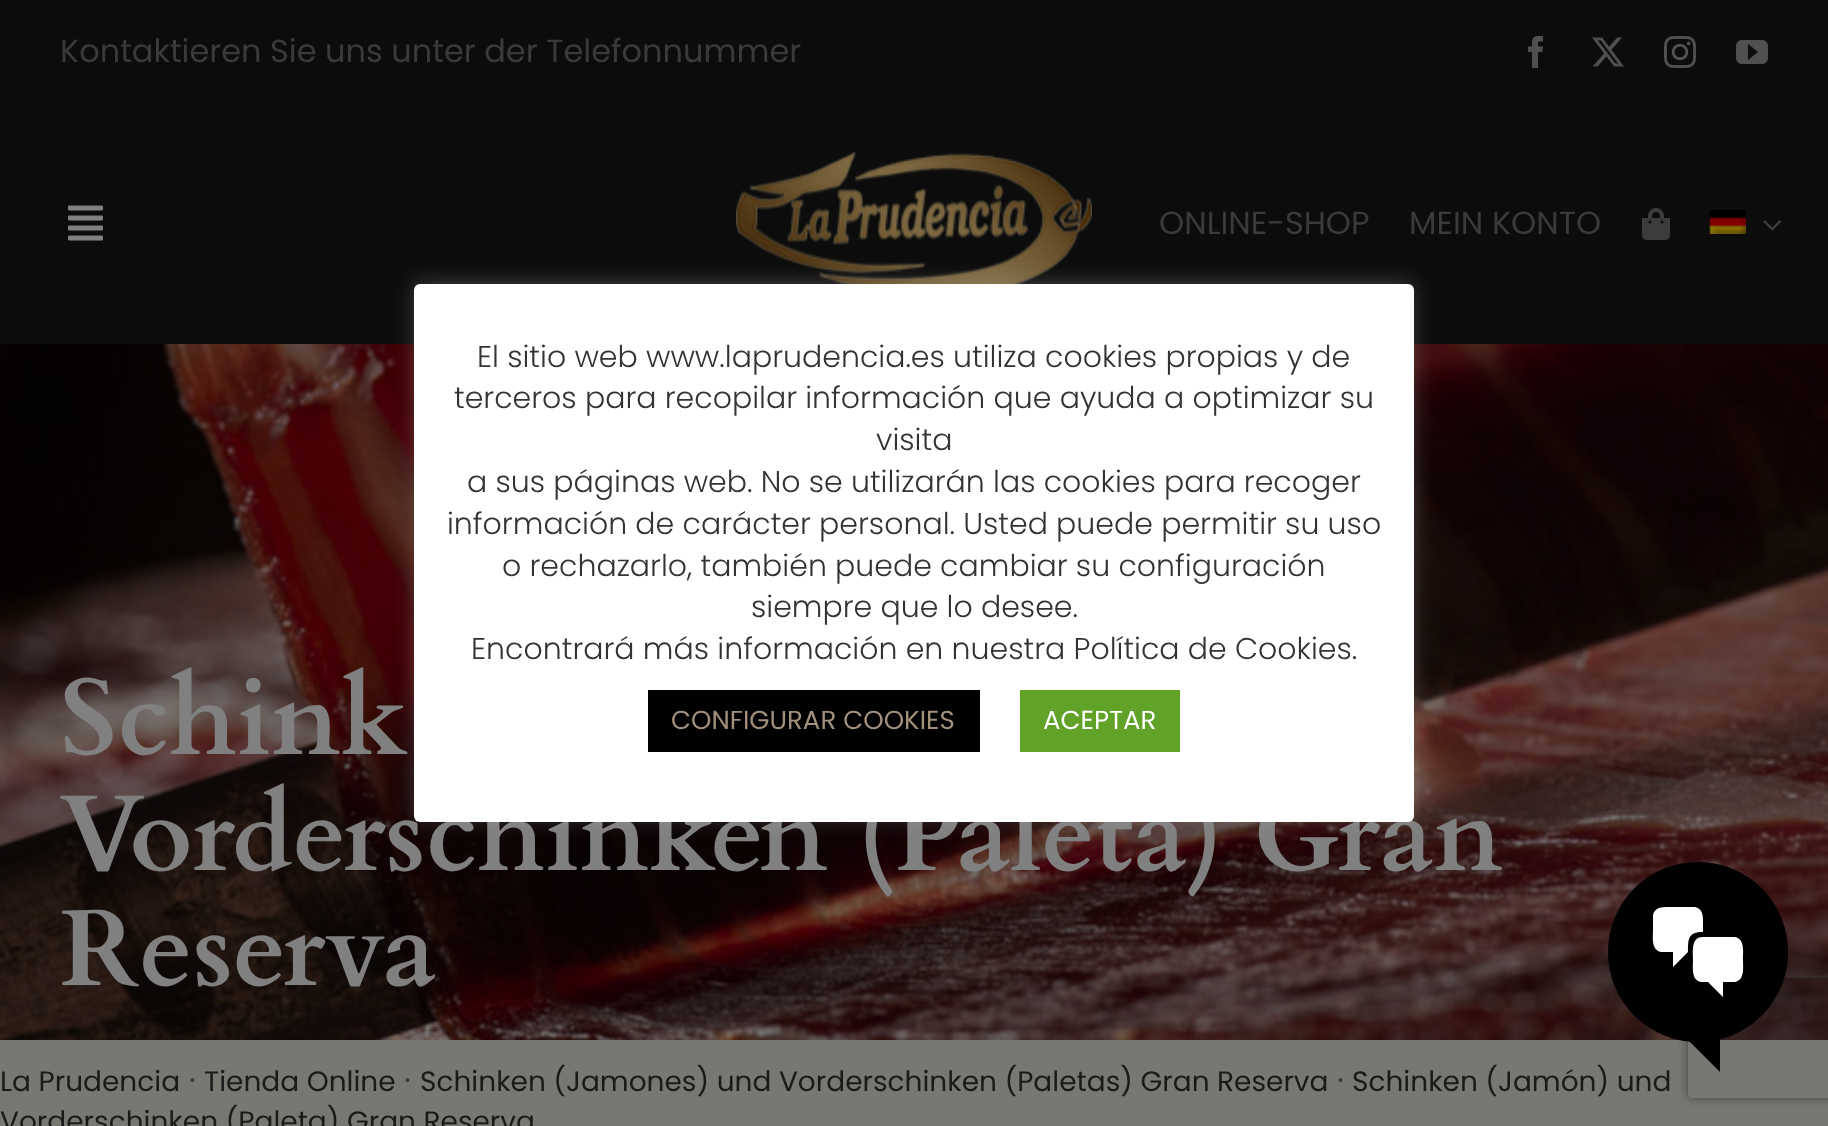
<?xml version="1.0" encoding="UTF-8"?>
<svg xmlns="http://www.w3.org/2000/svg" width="1828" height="1126">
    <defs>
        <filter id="blur1" x="-50%" y="-200%" width="200%" height="500%"><feGaussianBlur stdDeviation="10"/></filter>
        <clipPath id="clip1"><path d="M 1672 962 H 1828 V 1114 H 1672 Z M 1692 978 H 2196 C 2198 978 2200 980 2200 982 V 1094 C 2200 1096 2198 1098 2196 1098 H 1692 C 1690 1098 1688 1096 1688 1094 V 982 C 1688 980 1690 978 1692 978 Z" clip-rule="evenodd"/></clipPath>
        <filter id="blur2" x="-50%" y="-200%" width="200%" height="500%"><feGaussianBlur stdDeviation="5"/></filter>
    </defs>
    <rect width="100%" height="100%" fill="#797772"/>
    <rect x="0" y="0" width="1828" height="344" fill="#0C0C0C"/>
    <text x="60" y="62" font-family="Poppins" font-size="32" fill="#3A3A3A">Kontaktieren Sie uns unter der Telefonnummer</text>
    <image x="1528" y="36" width="15" height="32" href="img_01.png"/>
    <image x="1592" y="37" width="32" height="30" href="img_02.png"/>
    <image x="1664" y="36" width="32" height="32" href="img_03.png"/>
    <image x="1736" y="40" width="32" height="24" href="img_04.png"/>
    <image x="68" y="205" width="35" height="36" href="img_05.png"/>
    <image x="736" y="152" width="356" height="132" href="img_06.png"/>
    <text x="1159" y="234" font-family="Poppins" font-size="32" fill="#3A3A3A">ONLINE-SHOP</text>
    <text x="1409" y="234" font-family="Poppins" font-size="32" fill="#3A3A3A">MEIN KONTO</text>
    <image x="1642" y="208" width="28" height="32" href="img_07.png"/>
    <image x="1709" y="210" width="37" height="24" href="img_08.png"/>
    <image x="1763" y="220" width="19" height="11" href="img_09.png"/>
    <image x="0" y="344" width="1828" height="696" href="img_10.png"/>
    <text font-family="Cardo" font-size="108" font-weight="700" fill="#808080">
        <tspan x="60" y="754">Schink</tspan>
        <tspan x="60" y="870">Vorderschinken (Paleta) Gran</tspan>
        <tspan x="60" y="985">Reserva</tspan>
    </text>
    <text x="0" y="1091" font-family="Poppins" font-size="28" fill="#1A1A1A">La Prudencia</text>
    <text x="189" y="1091" font-family="Poppins" font-size="32" fill="#3A3A3A">·</text>
    <text x="204" y="1091" font-family="Poppins" font-size="28" fill="#1A1A1A">Tienda Online</text>
    <text x="404" y="1091" font-family="Poppins" font-size="32" fill="#3A3A3A">·</text>
    <text x="420" y="1091" font-family="Poppins" font-size="28" fill="#1A1A1A">Schinken (Jamones) und Vorderschinken (Paletas) Gran Reserva</text>
    <text x="1337" y="1091" font-family="Poppins" font-size="32" fill="#3A3A3A">·</text>
    <text x="1352" y="1091" font-family="Poppins" font-size="28" fill="#1A1A1A">Schinken (Jamón) und</text>
    <text x="0" y="1131" font-family="Poppins" font-size="28" fill="#1A1A1A">Vorderschinken (Paleta) Gran Reserva</text>
    <rect x="414" y="282" width="1000" height="538" rx="6" fill="#ACABAB" fill-opacity="0.3" filter="url(#blur1)"/>
    <rect x="414" y="284" width="1000" height="538" rx="6" fill="#FFFFFF"/>
    <text x="477" y="367" font-family="Poppins" font-size="30" font-weight="300" fill="#333333">El sitio web www.laprudencia.es utiliza cookies propias y de</text>
    <text x="454" y="408" font-family="Poppins" font-size="30" font-weight="300" fill="#333333">terceros para recopilar información que ayuda a optimizar su</text>
    <text x="876" y="450" font-family="Poppins" font-size="30" font-weight="300" fill="#333333">visita</text>
    <text x="467" y="492" font-family="Poppins" font-size="30" font-weight="300" fill="#333333">a sus páginas web. No se utilizarán las cookies para recoger</text>
    <text x="447" y="534" font-family="Poppins" font-size="30" font-weight="300" fill="#333333">información de carácter personal. Usted puede permitir su uso</text>
    <text x="502" y="576" font-family="Poppins" font-size="30" font-weight="300" fill="#333333">o rechazarlo, también puede cambiar su configuración</text>
    <text x="751" y="617" font-family="Poppins" font-size="30" font-weight="300" fill="#333333">siempre que lo desee.</text>
    <text x="471" y="659" font-family="Poppins" font-size="30" font-weight="300" fill="#333333">Encontrará más información en nuestra Política de Cookies.</text>
    <rect x="648" y="690" width="332" height="62" fill="#000000"/>
    <text x="671" y="729" font-family="Poppins" font-size="26" fill="#A1907C">CONFIGURAR COOKIES</text>
    <rect x="1020" y="690" width="160" height="62" fill="#61A229"/>
    <text x="1043" y="729" font-family="Poppins" font-size="26" fill="#FFFFFF">ACEPTAR</text>
    <g clip-path="url(#clip1)">
        <rect x="1688" y="978" width="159" height="120" rx="4" fill="#404040" filter="url(#blur2)"/>
    </g>
    <circle cx="1698" cy="952" r="85" fill="#000000" stroke="#000000" stroke-width="10"/>
    <path d="M 1703 932 C 1688 932 1688 939 1688 952 L 1673 967 V 952 H 1661 C 1651 950 1653 937 1653 930 V 915 C 1655 907 1662 907 1668 907 H 1695 C 1703 909 1703 916 1703 922 Z M 1703 937 H 1735 C 1745 939 1743 952 1743 959 C 1743 967 1745 980 1735 982 H 1723 V 997 L 1708 982 H 1701 C 1691 980 1693 967 1693 959 C 1693 951 1691 937 1703 937 Z" fill="#FFFFFF"/>
    <path d="M 1676 1028 H 1720 V 1072 Z" fill="#000000"/>
</svg>
